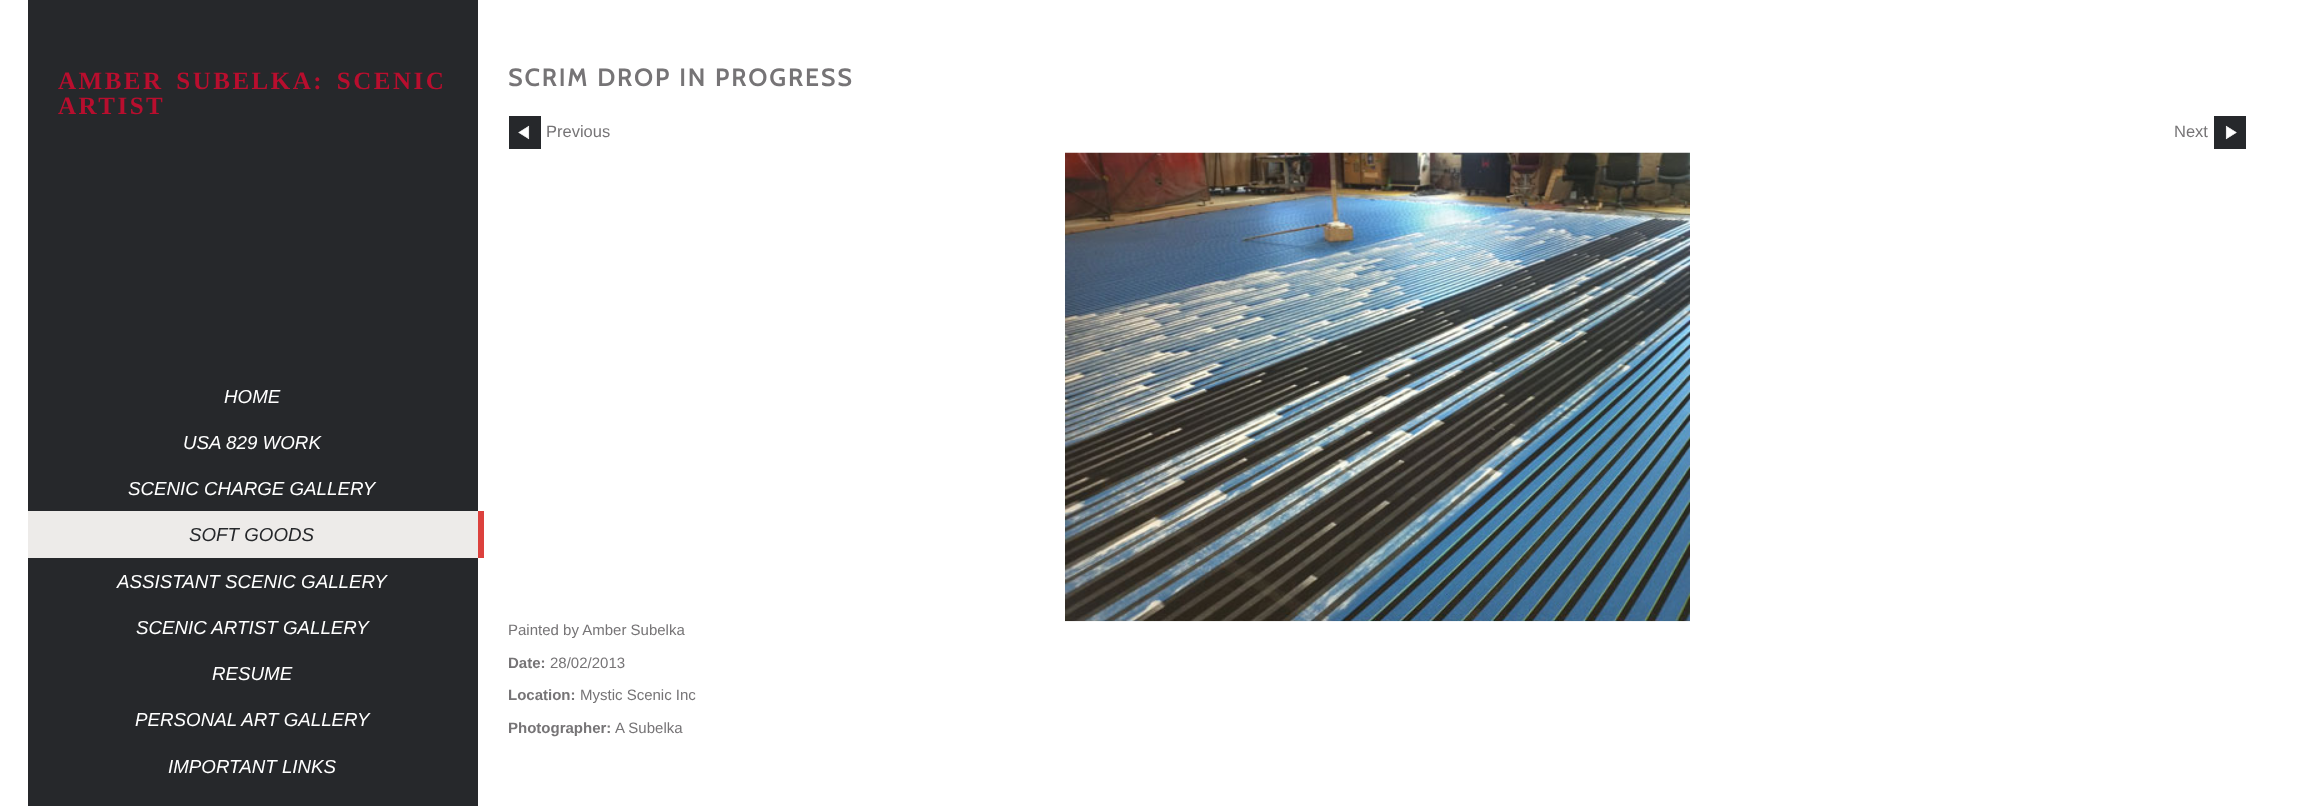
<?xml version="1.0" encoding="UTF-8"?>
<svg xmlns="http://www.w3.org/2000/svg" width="2303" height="806">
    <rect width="100%" height="100%" fill="#FFFFFF"/>
    <rect x="28" y="0" width="450" height="806" fill="#26282B"/>
    <text font-family="Liberation Serif" font-size="25" font-weight="700" letter-spacing="2.5" fill="#B80E2E">
        <tspan x="58" y="89" word-spacing="4">AMBER SUBELKA: SCENIC</tspan>
        <tspan x="58" y="114">ARTIST</tspan>
    </text>
    <text x="224" y="403" font-family="Liberation Sans" font-size="18.75" font-style="italic" fill="#FFFFFF">HOME</text>
    <text x="183" y="449" font-family="Liberation Sans" font-size="18.75" font-style="italic" fill="#FFFFFF">USA 829 WORK</text>
    <text x="128" y="495" font-family="Liberation Sans" font-size="18.75" font-style="italic" fill="#FFFFFF">SCENIC CHARGE GALLERY</text>
    <rect x="28" y="511" width="450" height="47" fill="#EDEBE9"/>
    <rect x="478" y="511" width="6" height="47" fill="#DC413D"/>
    <text x="189" y="541" font-family="Liberation Sans" font-size="18.75" font-style="italic" fill="#26282B">SOFT GOODS</text>
    <text x="117" y="588" font-family="Liberation Sans" font-size="18.75" font-style="italic" fill="#FFFFFF">ASSISTANT SCENIC GALLERY</text>
    <text x="136" y="634" font-family="Liberation Sans" font-size="18.75" font-style="italic" fill="#FFFFFF">SCENIC ARTIST GALLERY</text>
    <text x="212" y="680" font-family="Liberation Sans" font-size="18.75" font-style="italic" fill="#FFFFFF">RESUME</text>
    <text x="135" y="726" font-family="Liberation Sans" font-size="18.75" font-style="italic" fill="#FFFFFF">PERSONAL ART GALLERY</text>
    <text x="168" y="773" font-family="Liberation Sans" font-size="18.75" font-style="italic" fill="#FFFFFF">IMPORTANT LINKS</text>
    <text x="508" y="86" font-family="Cabin" font-size="24" font-weight="700" letter-spacing="2.5" fill="#767476">SCRIM DROP IN PROGRESS</text>
    <rect x="509" y="116" width="32" height="33" fill="#26282B"/>
    <image x="518" y="125" width="12" height="15" href="img_01.png"/>
    <text x="546" y="137" font-family="Liberation Sans" font-size="16.5" fill="#767476">Previous</text>
    <text x="2174" y="137" font-family="Liberation Sans" font-size="16.5" fill="#767476">Next</text>
    <rect x="2214" y="116" width="32" height="33" fill="#26282B"/>
    <image x="2225" y="125" width="12" height="15" href="img_02.png"/>
    <image x="1065" y="152" width="625" height="470" href="img_03.png"/>
    <text x="508" y="635" font-family="Liberation Sans" font-size="15" fill="#767476">Painted by Amber Subelka</text>
    <text x="508" y="668" font-family="Liberation Sans" font-size="15" font-weight="700" fill="#767476">Date:</text>
    <text x="550" y="668" font-family="Liberation Sans" font-size="15" fill="#767476">28/02/2013</text>
    <text x="508" y="700" font-family="Liberation Sans" font-size="15" font-weight="700" fill="#767476">Location:</text>
    <text x="580" y="700" font-family="Liberation Sans" font-size="15" fill="#767476">Mystic Scenic Inc</text>
    <text x="508" y="733" font-family="Liberation Sans" font-size="15" font-weight="700" fill="#767476">Photographer:</text>
    <text x="615" y="733" font-family="Liberation Sans" font-size="15" fill="#767476">A Subelka</text>
</svg>
